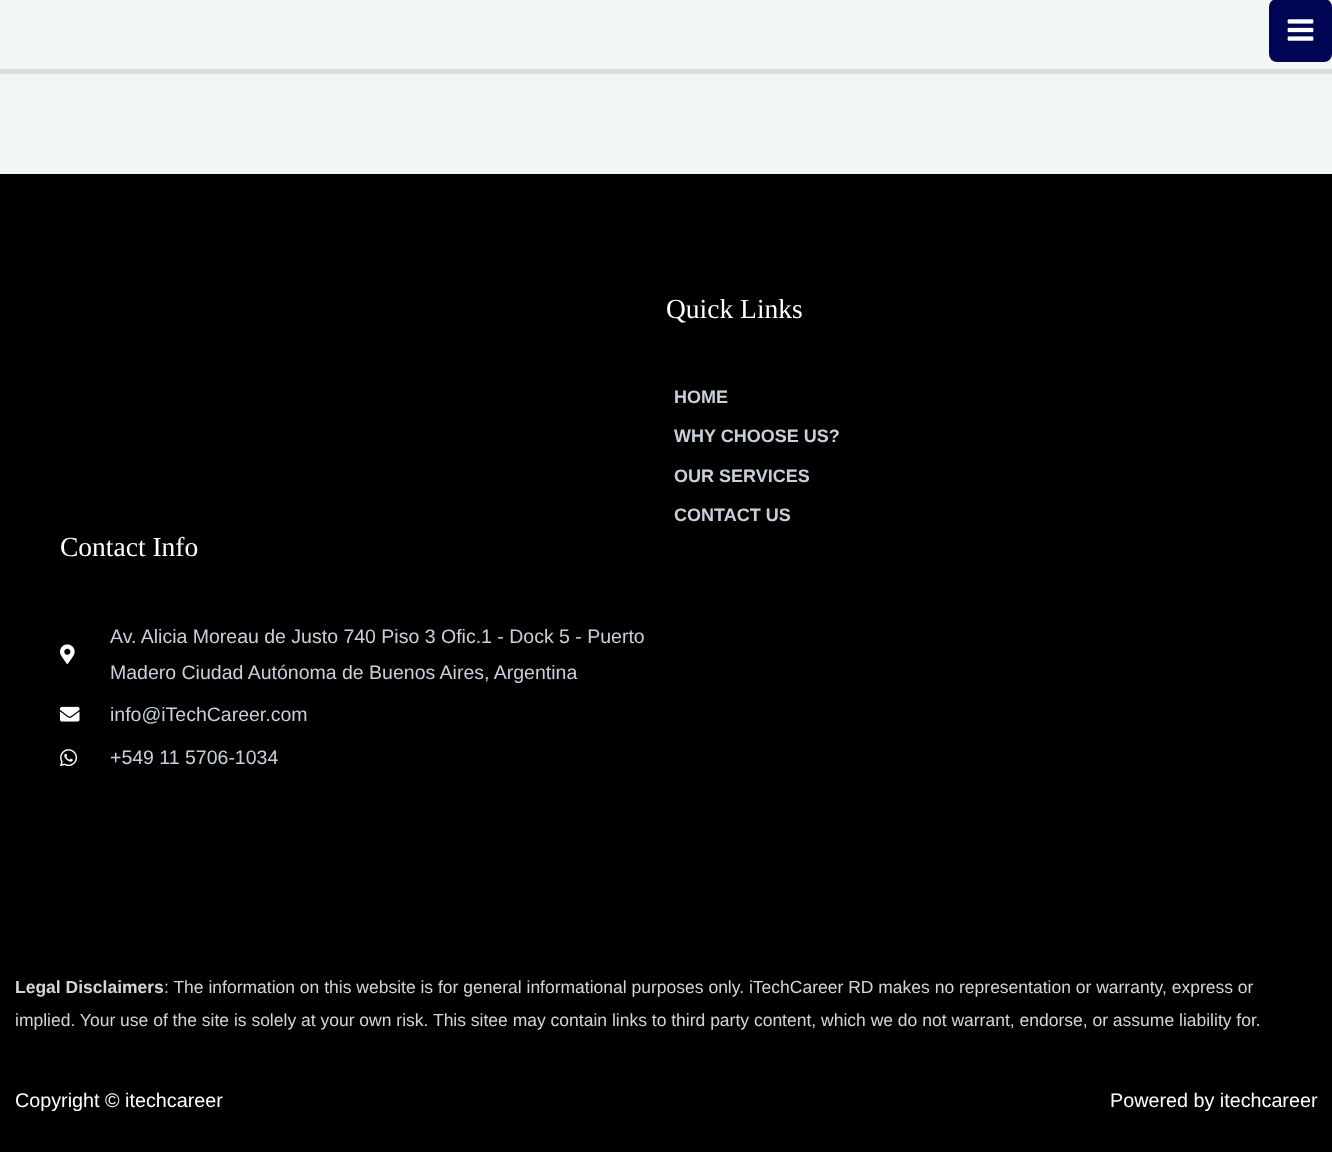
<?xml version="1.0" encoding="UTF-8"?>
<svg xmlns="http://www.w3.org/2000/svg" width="1332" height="1152">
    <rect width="100%" height="100%" fill="#F3F6F6"/>
    <rect x="0" y="69" width="1332" height="5" fill="#DDDDDD"/>
    <rect x="1269" y="-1" width="63" height="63" rx="8" fill="#000653"/>
    <image x="1287" y="19" width="27" height="22" href="img_01.png"/>
    <rect x="0" y="174" width="1332" height="978" fill="#000000"/>
    <text x="666" y="318" font-family="Liberation Serif" font-size="27.5" fill="#FFFFFF">Quick Links</text>
    <text x="674" y="403" font-family="Liberation Sans" font-size="18" font-weight="700" fill="#CAD0DB">HOME</text>
    <text x="674" y="442" font-family="Liberation Sans" font-size="18" font-weight="700" fill="#CAD0DB">WHY CHOOSE US?</text>
    <text x="674" y="482" font-family="Liberation Sans" font-size="18" font-weight="700" fill="#CAD0DB">OUR SERVICES</text>
    <text x="674" y="521" font-family="Liberation Sans" font-size="18" font-weight="700" fill="#CAD0DB">CONTACT US</text>
    <text x="60" y="556" font-family="Liberation Serif" font-size="27.5" fill="#FFFFFF">Contact Info</text>
    <image x="60" y="644" width="15" height="20" href="img_02.png"/>
    <text font-family="Liberation Sans" font-size="19.5" fill="#CAD0DB">
        <tspan x="110" y="643">Av. Alicia Moreau de Justo 740 Piso 3 Ofic.1 - Dock 5 - Puerto</tspan>
        <tspan x="110" y="679">Madero Ciudad Autónoma de Buenos Aires, Argentina</tspan>
    </text>
    <image x="60" y="706" width="20" height="16" href="img_03.png"/>
    <text x="110" y="721" font-family="Liberation Sans" font-size="19.5" fill="#CAD0DB">info@iTechCareer.com</text>
    <image x="60" y="749" width="18" height="18" href="img_04.png"/>
    <text x="110" y="764" font-family="Liberation Sans" font-size="19.5" fill="#CAD0DB">+549 11 5706-1034</text>
    <text x="15" y="993" font-family="Liberation Sans" font-size="17.5" font-weight="700" fill="#D5D5D5">Legal Disclaimers</text>
    <text x="164" y="993" font-family="Liberation Sans" font-size="17.5" fill="#D5D5D5">: The information on this website is for general informational purposes only. iTechCareer RD makes no representation or warranty, express or</text>
    <text x="15" y="1026" font-family="Liberation Sans" font-size="17.5" fill="#D5D5D5">implied. Your use of the site is solely at your own risk. This sitee may contain links to third party content, which we do not warrant, endorse, or assume liability for.</text>
    <text x="15" y="1107" font-family="Liberation Sans" font-size="19.75" fill="#FFFFFF">Copyright © itechcareer</text>
    <text x="1110" y="1107" font-family="Liberation Sans" font-size="19.75" fill="#FFFFFF">Powered by itechcareer</text>
</svg>
